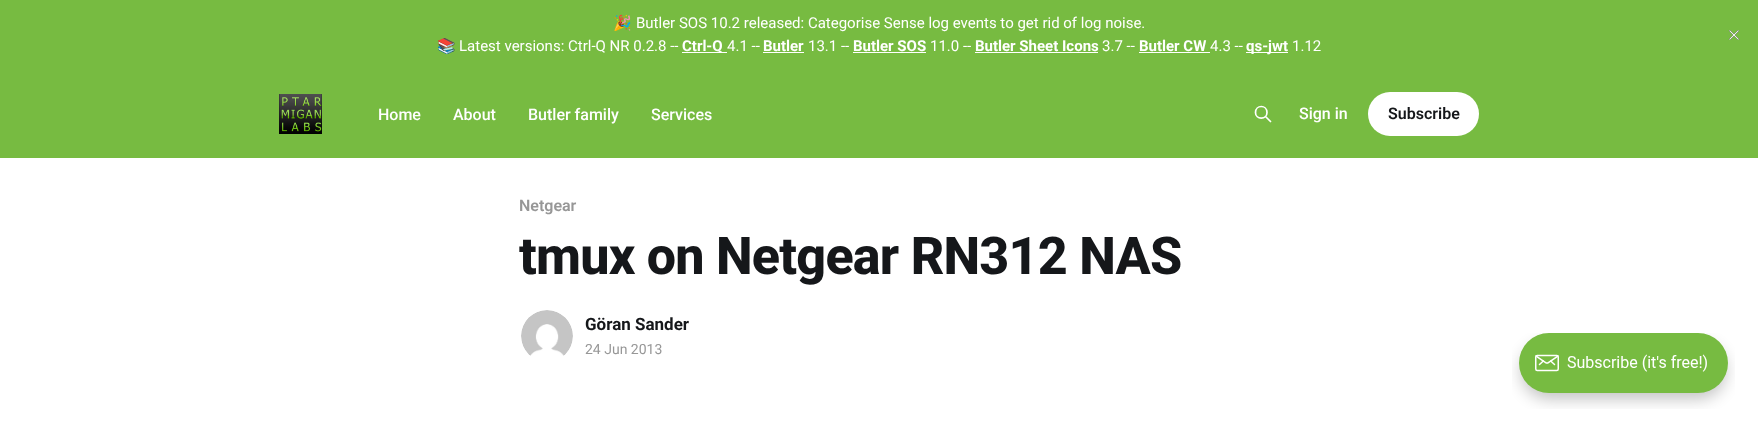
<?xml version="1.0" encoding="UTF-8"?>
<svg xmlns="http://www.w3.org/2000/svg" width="1758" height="421">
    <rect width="100%" height="100%" fill="#FFFFFF"/>
    <rect x="0" y="0" width="1758" height="158" fill="#77BB41"/>
    <text x="613" y="28" font-family="Noto Color Emoji" font-size="15" fill="#FFFFFF">🎉</text>
    <text x="636" y="28" font-family="Roboto" font-size="15" fill="#FFFFFF">Butler SOS 10.2 released: Categorise Sense log events to get rid of log noise.</text>
    <text x="437" y="51" font-family="Noto Color Emoji" font-size="15" fill="#FFFFFF">📚</text>
    <text x="459" y="51" font-family="Roboto" font-size="15" fill="#FFFFFF">Latest versions: Ctrl-Q NR 0.2.8 --</text>
    <rect x="682" y="52" width="45" height="1" fill="#FFFFFF"/>
    <text x="682" y="51" font-family="Roboto" font-size="15" font-weight="700" fill="#FFFFFF">Ctrl-Q</text>
    <text x="727" y="51" font-family="Roboto" font-size="15" fill="#FFFFFF">4.1 --</text>
    <text x="763" y="51" font-family="Roboto" font-size="15" font-weight="700" fill="#FFFFFF">Butler</text>
    <rect x="763" y="52" width="41" height="1" fill="#FFFFFF"/>
    <text x="808" y="51" font-family="Roboto" font-size="15" fill="#FFFFFF">13.1 --</text>
    <text x="853" y="51" font-family="Roboto" font-size="15" font-weight="700" fill="#FFFFFF">Butler SOS</text>
    <rect x="853" y="52" width="73" height="1" fill="#FFFFFF"/>
    <text x="930" y="51" font-family="Roboto" font-size="15" fill="#FFFFFF">11.0 --</text>
    <text x="975" y="51" font-family="Roboto" font-size="15" font-weight="700" fill="#FFFFFF">Butler Sheet Icons</text>
    <rect x="975" y="52" width="123" height="1" fill="#FFFFFF"/>
    <text x="1102" y="51" font-family="Roboto" font-size="15" fill="#FFFFFF">3.7 --</text>
    <text x="1139" y="51" font-family="Roboto" font-size="15" font-weight="700" fill="#FFFFFF">Butler CW</text>
    <text x="1210" y="51" font-family="Roboto" font-size="15" fill="#FFFFFF">4.3 --</text>
    <rect x="1139" y="52" width="71" height="1" fill="#FFFFFF"/>
    <rect x="1246" y="52" width="42" height="1" fill="#FFFFFF"/>
    <text x="1246" y="51" font-family="Roboto" font-size="15" font-weight="700" fill="#FFFFFF">qs-jwt</text>
    <text x="1292" y="51" font-family="Roboto" font-size="15" fill="#FFFFFF">1.12</text>
    <image x="1728" y="30" width="12" height="10" href="img_01.png"/>
    <image x="279" y="94" width="43" height="40" href="img_02.png"/>
    <text x="378" y="120" font-family="Roboto" font-size="16" font-weight="500" fill="#FFFFFF">Home</text>
    <text x="453" y="120" font-family="Roboto" font-size="16" font-weight="500" fill="#FFFFFF">About</text>
    <text x="528" y="120" font-family="Roboto" font-size="16" font-weight="500" fill="#FFFFFF">Butler family</text>
    <text x="651" y="120" font-family="Roboto" font-size="16" font-weight="500" fill="#FFFFFF">Services</text>
    <path d="M 1270.5 121.5 L 1265.5 116.5 M 1267 112.5 C 1267 120 1255.5 120 1255.5 112.5 C 1255.5 104.5 1267 104.5 1267 112.5 Z" fill="none" stroke="#FFFFFF" stroke-width="1.7" stroke-linecap="round" stroke-linejoin="round"/>
    <text x="1299" y="119" font-family="Roboto" font-size="16" font-weight="500" fill="#FFFFFF">Sign in</text>
    <rect x="1368" y="92" width="111" height="44" rx="22" fill="#FFFFFF"/>
    <text x="1388" y="119" font-family="Roboto" font-size="16" font-weight="600" fill="#15171A">Subscribe</text>
    <text x="519" y="211" font-family="Roboto" font-size="16" font-weight="600" fill="#979797">Netgear</text>
    <text x="519" y="274" font-family="Roboto" font-size="52" font-weight="800" letter-spacing="-0.75" fill="#15171A">tmux on Netgear RN312 NAS</text>
    <image x="521" y="310" width="52" height="46" href="img_03.png"/>
    <text x="585" y="330" font-family="Roboto" font-size="17" font-weight="700" fill="#15171A">Göran Sander</text>
    <text x="585" y="354" font-family="Roboto" font-size="14" fill="#979797">24 Jun 2013</text>
    <image x="1512" y="333" width="223" height="76" href="img_04.png"/>
</svg>
